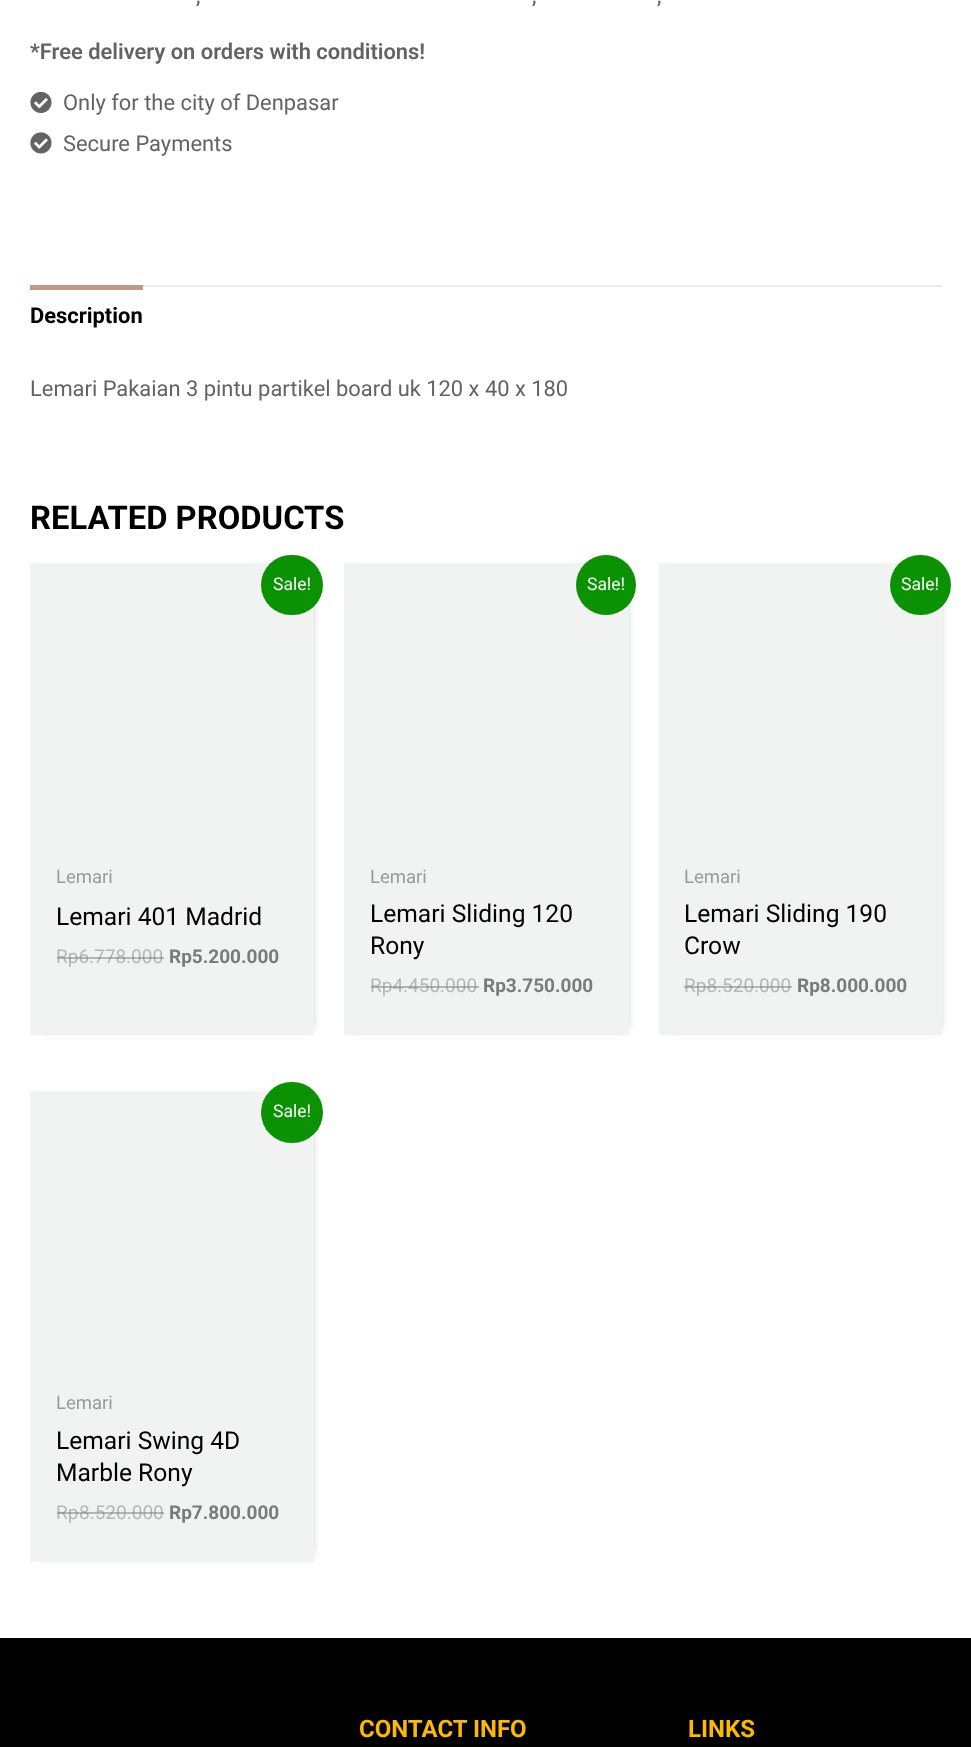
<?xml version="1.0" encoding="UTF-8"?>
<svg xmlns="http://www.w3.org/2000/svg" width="971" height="1747">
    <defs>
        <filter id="blur1" x="-50%" y="-200%" width="200%" height="500%"><feGaussianBlur stdDeviation="4"/></filter>
    </defs>
    <rect width="100%" height="100%" fill="#FFFFFF"/>
    <text x="196" y="3" font-family="Roboto" font-size="20" font-weight="500" fill="#636363">,</text>
    <text x="532" y="3" font-family="Roboto" font-size="20" font-weight="500" fill="#636363">,</text>
    <text x="657" y="3" font-family="Roboto" font-size="20" font-weight="500" fill="#636363">,</text>
    <text x="30" y="59" font-family="Roboto" font-size="21.9" font-weight="600" fill="#636363">*Free delivery on orders with conditions!</text>
    <image x="30" y="92" width="22" height="21" href="img_01.png"/>
    <text x="63" y="110" font-family="Roboto" font-size="21.9" fill="#636363">Only for the city of Denpasar</text>
    <image x="30" y="132" width="22" height="22" href="img_02.png"/>
    <text x="63" y="151" font-family="Roboto" font-size="21.9" fill="#636363">Secure Payments</text>
    <rect x="143" y="285" width="799" height="2" fill="#EDEDED"/>
    <rect x="30" y="285" width="113" height="5" fill="#C19A83"/>
    <text x="30" y="323" font-family="Roboto" font-size="21.9" font-weight="700" fill="#000000">Description</text>
    <text x="30" y="396" font-family="Roboto" font-size="21.9" fill="#636363">Lemari Pakaian 3 pintu partikel board uk 120 x 40 x 180</text>
    <text x="30" y="529" font-family="Roboto" font-size="32.75" font-weight="700" fill="#000000">RELATED PRODUCTS</text>
    <rect x="42" y="572" width="269" height="457" fill="#000000" fill-opacity="0.37" filter="url(#blur1)"/>
    <rect x="30" y="563" width="284" height="472" fill="#F1F2F2"/>
    <rect x="261" y="555" width="62" height="60" rx="30" fill="#0A9202"/>
    <text x="273" y="590" font-family="Roboto" font-size="17.5" fill="#FFFFFF">Sale!</text>
    <text x="56" y="883" font-family="Roboto" font-size="18.5" fill="#999A9A">Lemari</text>
    <text x="56" y="925" font-family="Roboto" font-size="24.6" fill="#000000">Lemari 401 Madrid</text>
    <text x="56" y="963" font-family="Roboto" font-size="19" fill="#B6B7B7">Rp6.778.000</text>
    <rect x="57" y="957" width="23" height="2" fill="#797979" fill-opacity="0.49"/>
    <rect x="80" y="957" width="84" height="2" fill="#797979" fill-opacity="0.49"/>
    <text x="169" y="963" font-family="Roboto" font-size="19" font-weight="700" fill="#7B7B7B">Rp5.200.000</text>
    <rect x="356" y="572" width="270" height="457" fill="#000000" fill-opacity="0.37" filter="url(#blur1)"/>
    <rect x="344" y="563" width="285" height="472" fill="#F1F2F2"/>
    <circle cx="606" cy="585" r="30" fill="#0A9202"/>
    <text x="587" y="590" font-family="Roboto" font-size="17.5" fill="#FFFFFF">Sale!</text>
    <text x="370" y="883" font-family="Roboto" font-size="18.5" fill="#999A9A">Lemari</text>
    <text font-family="Roboto" font-size="24.6" fill="#000000">
        <tspan x="370" y="922">Lemari Sliding 120</tspan>
        <tspan x="370" y="954">Rony</tspan>
    </text>
    <text x="370" y="992" font-family="Roboto" font-size="19" fill="#B6B7B7">Rp4.450.000</text>
    <rect x="371" y="986" width="22" height="2" fill="#797979" fill-opacity="0.49"/>
    <rect x="393" y="986" width="86" height="2" fill="#797979" fill-opacity="0.49"/>
    <text x="483" y="992" font-family="Roboto" font-size="19" font-weight="700" fill="#7B7B7B">Rp3.750.000</text>
    <rect x="671" y="572" width="268" height="457" fill="#000000" fill-opacity="0.37" filter="url(#blur1)"/>
    <rect x="659" y="563" width="283" height="472" fill="#F1F2F2"/>
    <rect x="890" y="555" width="61" height="60" rx="30" fill="#0A9202"/>
    <text x="901" y="590" font-family="Roboto" font-size="17.5" fill="#FFFFFF">Sale!</text>
    <text x="684" y="883" font-family="Roboto" font-size="18.5" fill="#999A9A">Lemari</text>
    <text font-family="Roboto" font-size="24.6" fill="#000000">
        <tspan x="684" y="922">Lemari Sliding 190</tspan>
        <tspan x="684" y="954">Crow</tspan>
    </text>
    <text x="684" y="992" font-family="Roboto" font-size="19" fill="#B6B7B7">Rp8.520.000</text>
    <rect x="684" y="986" width="23" height="2" fill="#797979" fill-opacity="0.49"/>
    <rect x="707" y="986" width="85" height="2" fill="#797979" fill-opacity="0.49"/>
    <text x="797" y="992" font-family="Roboto" font-size="19" font-weight="700" fill="#7B7B7B">Rp8.000.000</text>
    <rect x="42" y="1100" width="269" height="456" fill="#000000" fill-opacity="0.37" filter="url(#blur1)"/>
    <rect x="30" y="1091" width="284" height="471" fill="#F1F2F2"/>
    <rect x="261" y="1082" width="62" height="61" rx="30.5" fill="#0A9202"/>
    <text x="273" y="1117" font-family="Roboto" font-size="17.5" fill="#FFFFFF">Sale!</text>
    <text x="56" y="1409" font-family="Roboto" font-size="18.5" fill="#999A9A">Lemari</text>
    <text font-family="Roboto" font-size="24.6" fill="#000000">
        <tspan x="56" y="1449">Lemari Swing 4D</tspan>
        <tspan x="56" y="1481">Marble Rony</tspan>
    </text>
    <text x="56" y="1519" font-family="Roboto" font-size="19" fill="#B6B7B7">Rp</text>
    <rect x="57" y="1512" width="23" height="2" fill="#797979" fill-opacity="0.49"/>
    <text x="79" y="1519" font-family="Roboto" font-size="19" fill="#B6B7B7">8.520.000</text>
    <rect x="80" y="1512" width="84" height="2" fill="#797979" fill-opacity="0.49"/>
    <text x="169" y="1519" font-family="Roboto" font-size="19" font-weight="700" fill="#7B7B7B">Rp7.800.000</text>
    <rect x="0" y="1638" width="971" height="109" fill="#000000"/>
    <text x="359" y="1737" font-family="Roboto" font-size="24" font-weight="700" fill="#FCB900">CONTACT INFO</text>
    <text x="688" y="1737" font-family="Roboto" font-size="24" font-weight="700" fill="#FCB900">LINKS</text>
</svg>
